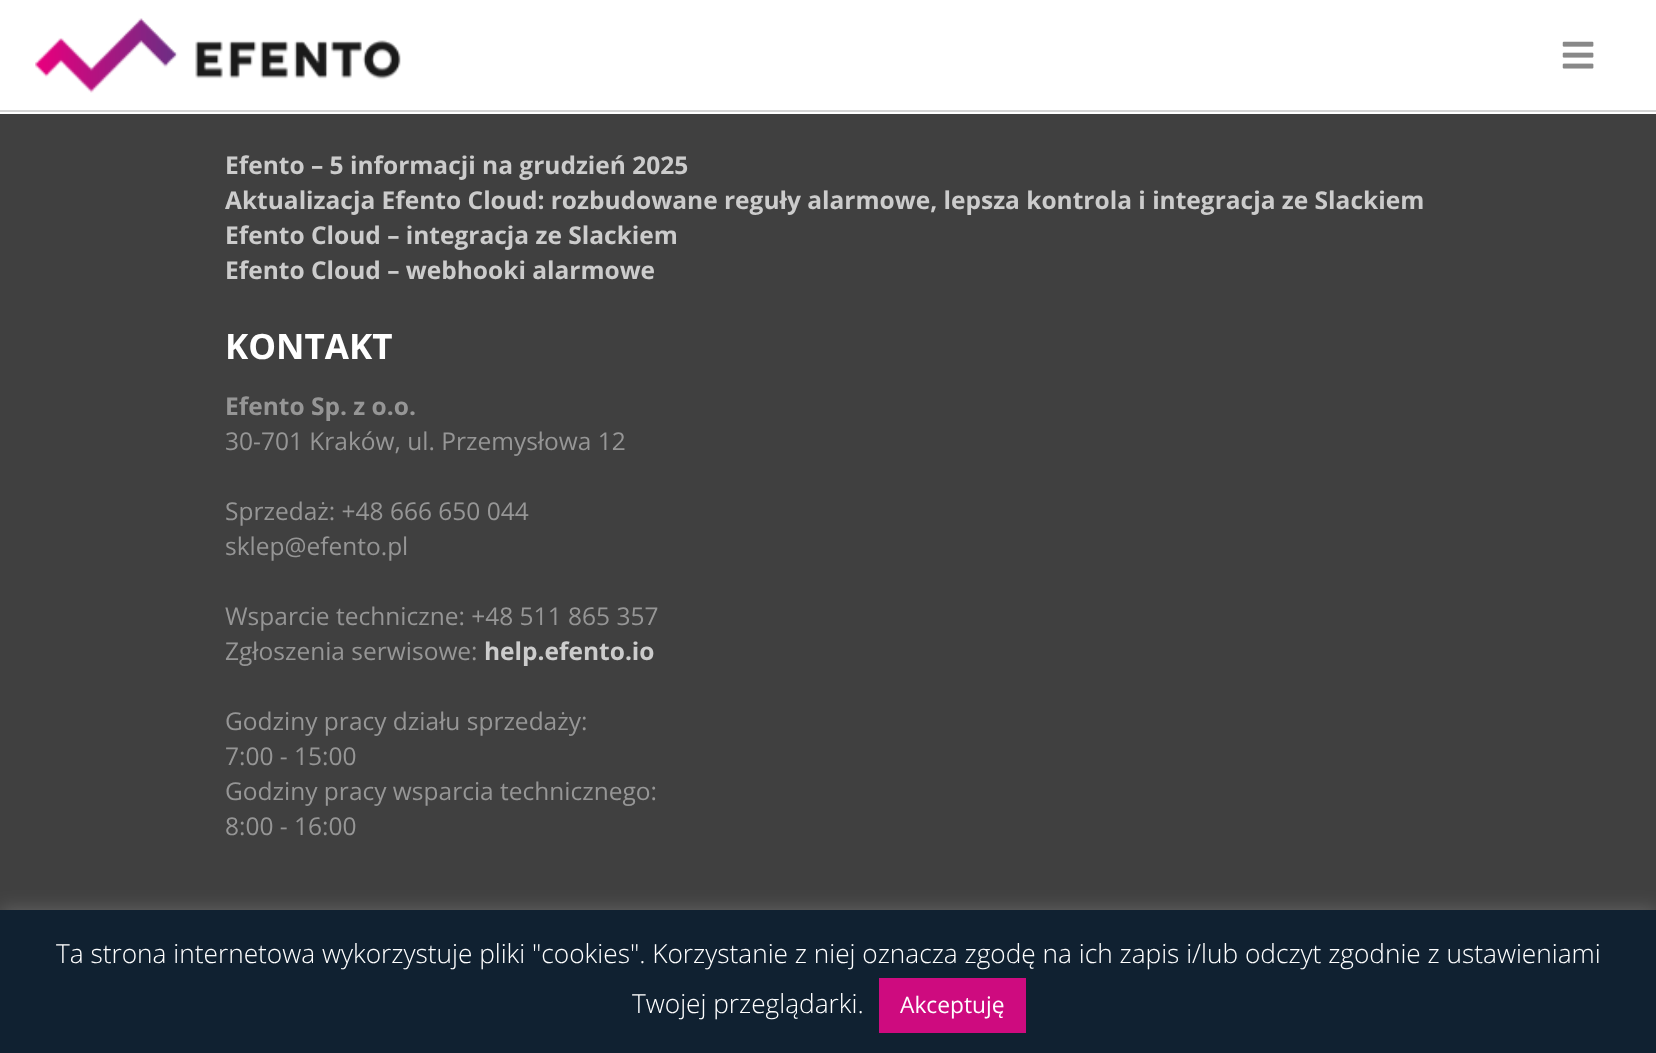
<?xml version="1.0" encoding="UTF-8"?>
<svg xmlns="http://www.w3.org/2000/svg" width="1656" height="1053">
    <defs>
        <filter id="blur1" x="-50%" y="-200%" width="200%" height="500%"><feGaussianBlur stdDeviation="9"/></filter>
    </defs>
    <rect width="100%" height="100%" fill="#404040"/>
    <rect x="0" y="0" width="1656" height="114" fill="#FFFFFF"/>
    <rect x="0" y="110" width="1656" height="2" fill="#D4D4D4"/>
    <image x="35" y="18" width="366" height="75" href="img_01.png"/>
    <image x="1562" y="41" width="32" height="28" href="img_02.png"/>
    <text font-family="Open Sans" font-size="24.5" font-weight="700" fill="#CCCCCC">
        <tspan x="225" y="174">Efento – 5 informacji na grudzień 2025</tspan>
        <tspan x="225" y="209">Aktualizacja Efento Cloud: rozbudowane reguły alarmowe, lepsza kontrola i integracja ze Slackiem</tspan>
        <tspan x="225" y="244">Efento Cloud – integracja ze Slackiem</tspan>
        <tspan x="225" y="279">Efento Cloud – webhooki alarmowe</tspan>
    </text>
    <text x="225" y="359" font-family="Open Sans" font-size="35" font-weight="700" fill="#FFFFFF">KONTAKT</text>
    <text x="225" y="415" font-family="Open Sans" font-size="24.5" font-weight="700" fill="#969696">Efento Sp. z o.o.</text>
    <text x="225" y="450" font-family="Open Sans" font-size="24.5" fill="#969696">30-701 Kraków, ul. Przemysłowa 12</text>
    <text font-family="Open Sans" font-size="24.5" fill="#969696">
        <tspan x="225" y="520">Sprzedaż: +48 666 650 044</tspan>
        <tspan x="225" y="555">sklep@efento.pl</tspan>
    </text>
    <text font-family="Open Sans" font-size="24.5" fill="#969696">
        <tspan x="225" y="625">Wsparcie techniczne: +48 511 865 357</tspan>
        <tspan x="225" y="660">Zgłoszenia serwisowe:</tspan>
    </text>
    <text x="484" y="660" font-family="Open Sans" font-size="24.5" font-weight="700" fill="#CCCCCC">help.efento.io</text>
    <text font-family="Open Sans" font-size="24.5" fill="#969696">
        <tspan x="225" y="730">Godziny pracy działu sprzedaży:</tspan>
        <tspan x="225" y="765">7:00 - 15:00</tspan>
        <tspan x="225" y="800">Godziny pracy wsparcia technicznego:</tspan>
        <tspan x="225" y="835">8:00 - 16:00</tspan>
    </text>
    <rect x="0" y="908" width="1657" height="144" fill="#ACABAB" fill-opacity="0.3" filter="url(#blur1)"/>
    <rect x="0" y="910" width="1656" height="143" fill="#102131"/>
    <text x="56" y="963" font-family="Open Sans" font-size="26.25" font-weight="300" fill="#FFFFFF">Ta strona internetowa wykorzystuje pliki "cookies". Korzystanie z niej oznacza zgodę na ich zapis i/lub odczyt zgodnie z ustawieniami</text>
    <text x="632" y="1013" font-family="Open Sans" font-size="26.25" font-weight="300" fill="#FFFFFF">Twojej przeglądarki.</text>
    <rect x="879" y="978" width="147" height="55" fill="#CE0B7F"/>
    <text x="900" y="1013" font-family="Open Sans" font-size="22.75" fill="#FFFFFF">Akceptuję</text>
</svg>
